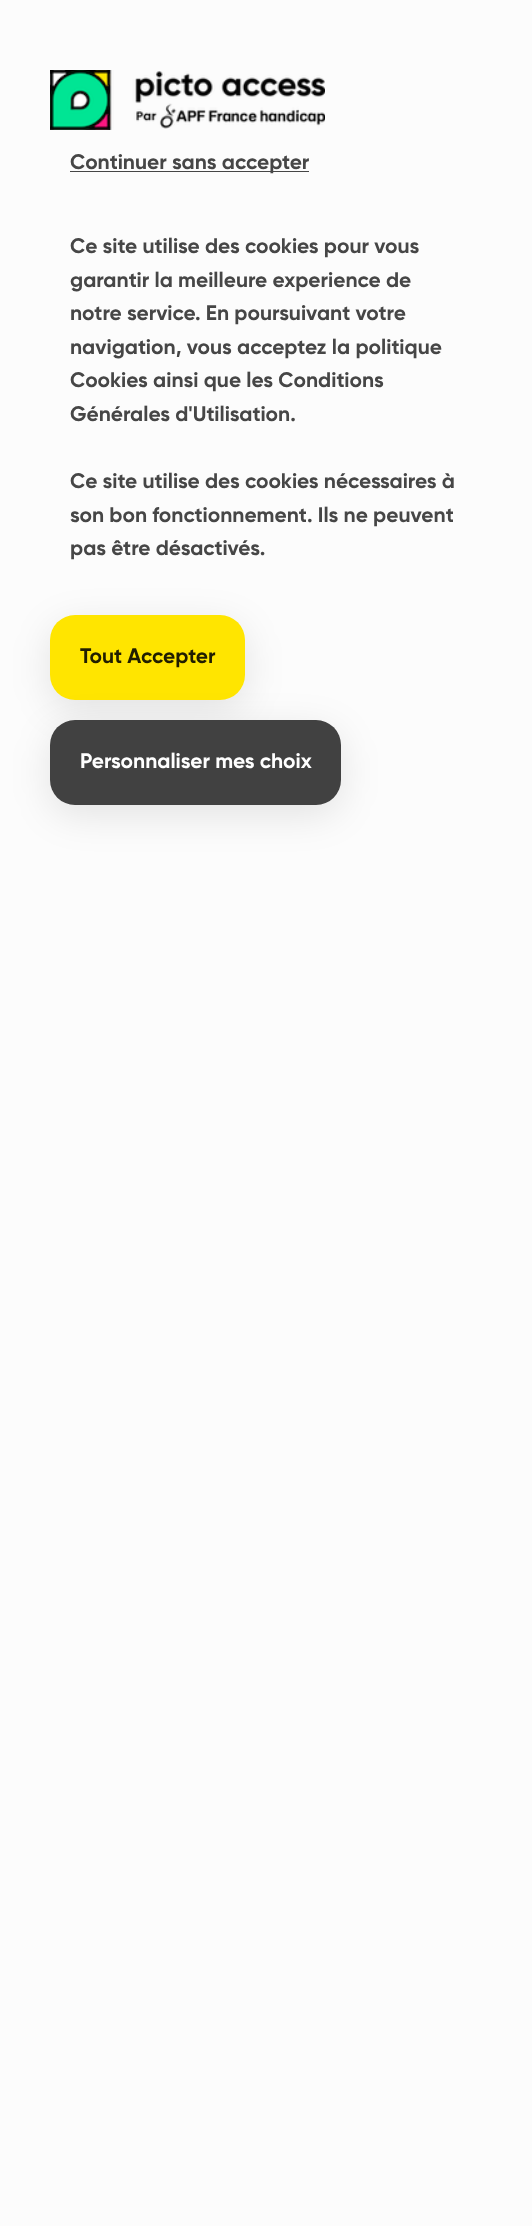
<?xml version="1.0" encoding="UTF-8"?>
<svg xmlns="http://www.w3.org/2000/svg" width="532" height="2226">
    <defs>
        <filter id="blur1" x="-50%" y="-200%" width="200%" height="500%"><feGaussianBlur stdDeviation="19"/></filter>
    </defs>
    <rect width="100%" height="100%" fill="#FCFCFC"/>
    <image x="50" y="70" width="275" height="60" href="img_01.png"/>
    <rect x="70" y="171" width="239" height="1" fill="#464646"/>
    <text x="70" y="169" font-family="Gilroy" font-size="21" font-weight="700" fill="#464646">Continuer sans accepter</text>
    <text font-family="Gilroy" font-size="21" font-weight="700" fill="#464646">
        <tspan x="70" y="253">Ce site utilise des cookies pour vous</tspan>
        <tspan x="70" y="287">garantir la meilleure experience de</tspan>
        <tspan x="70" y="320">notre service. En poursuivant votre</tspan>
        <tspan x="70" y="354">navigation, vous acceptez la politique</tspan>
        <tspan x="70" y="387">Cookies ainsi que les Conditions</tspan>
        <tspan x="70" y="421">Générales d'Utilisation.</tspan>
    </text>
    <text font-family="Gilroy" font-size="21" font-weight="700" fill="#464646">
        <tspan x="70" y="488">Ce site utilise des cookies nécessaires à</tspan>
        <tspan x="70" y="522">son bon fonctionnement. Ils ne peuvent</tspan>
        <tspan x="70" y="555">pas être désactivés.</tspan>
    </text>
    <rect x="50" y="625" width="195" height="85" rx="25" fill="#000000" fill-opacity="0.1" filter="url(#blur1)"/>
    <rect x="50" y="615" width="195" height="85" rx="25" fill="#FFE500"/>
    <text x="80" y="663" font-family="Gilroy" font-size="21" font-weight="700" fill="#211E00">Tout Accepter</text>
    <rect x="50" y="730" width="291" height="85" rx="25" fill="#000000" fill-opacity="0.1" filter="url(#blur1)"/>
    <rect x="50" y="720" width="291" height="85" rx="25" fill="#414141"/>
    <text x="80" y="768" font-family="Gilroy" font-size="21" font-weight="700" fill="#FFFFFF">Personnaliser mes choix</text>
</svg>
